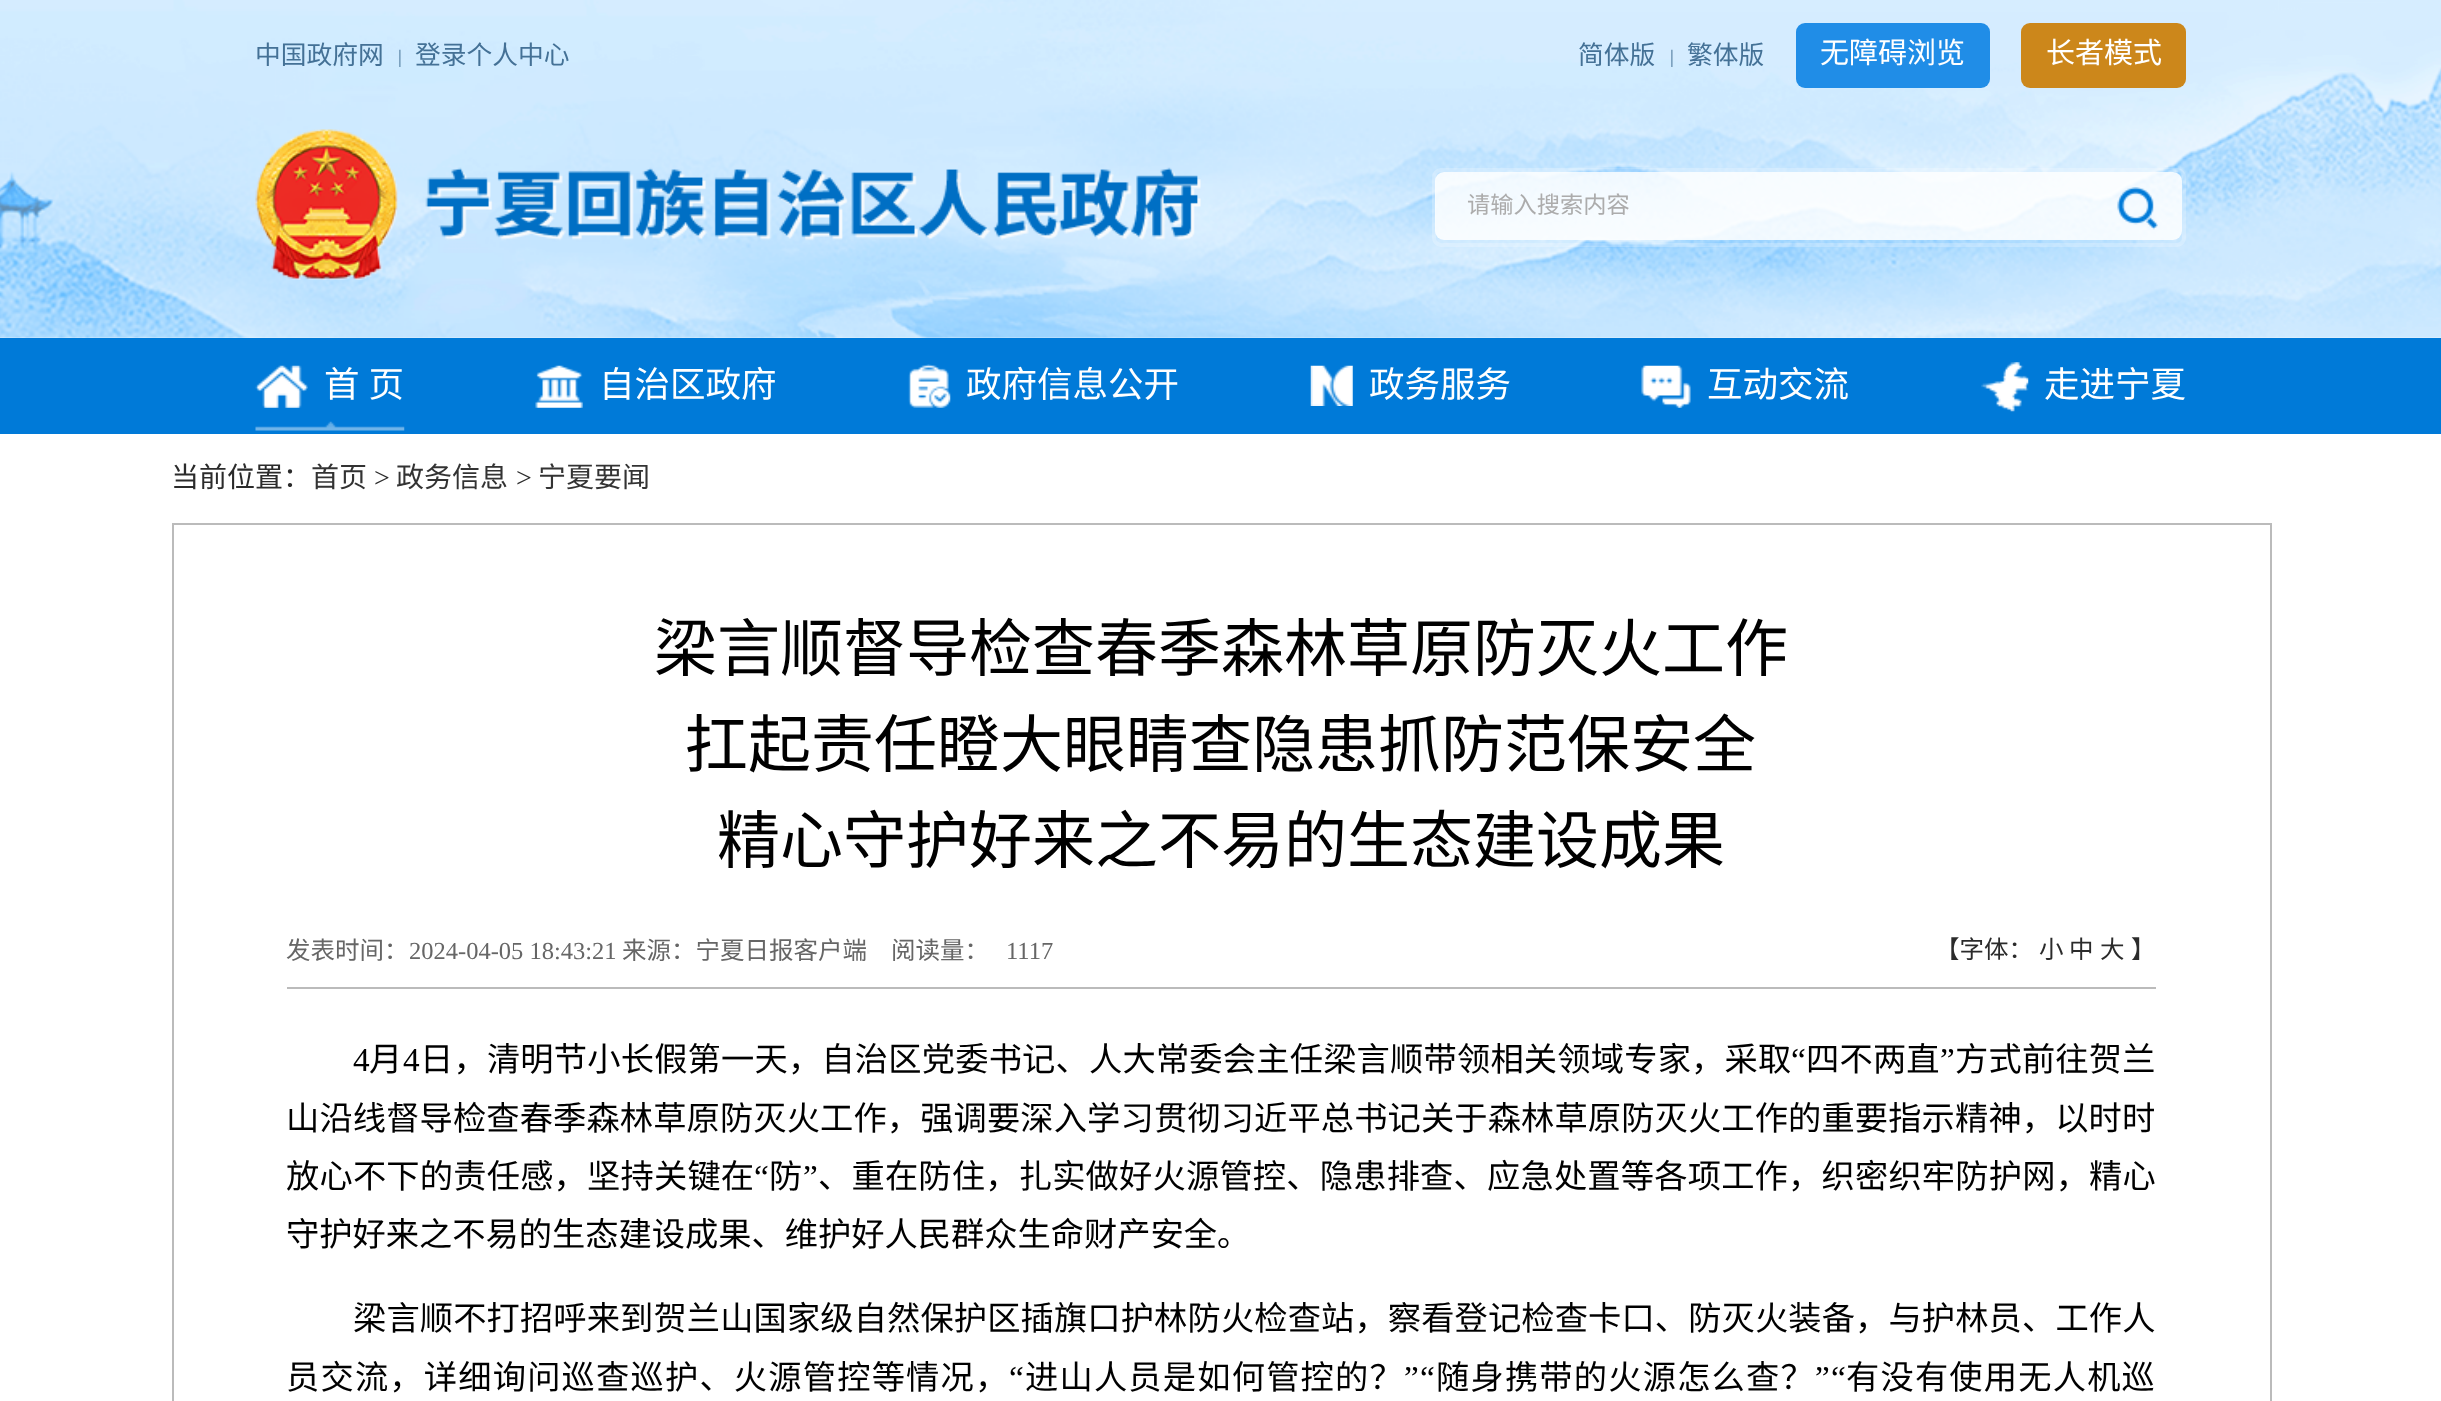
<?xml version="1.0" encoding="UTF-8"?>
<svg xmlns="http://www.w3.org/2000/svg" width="2441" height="1401">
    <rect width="100%" height="100%" fill="#FFFFFF"/>
    <image x="0" y="0" width="2441" height="338" href="img_01.png"/>
    <text x="255" y="64" font-family="Noto Sans CJK SC" font-size="25.75" fill="#447196">中国政府网</text>
    <text x="398" y="63" font-family="Liberation Serif" font-size="19" fill="#447196">|</text>
    <text x="415" y="64" font-family="Noto Sans CJK SC" font-size="25.75" fill="#447196">登录个人中心</text>
    <text x="1578" y="64" font-family="Noto Sans CJK SC" font-size="25.75" fill="#447196">简体版</text>
    <text x="1670" y="63" font-family="Liberation Serif" font-size="19" fill="#447196">|</text>
    <text x="1687" y="64" font-family="Noto Sans CJK SC" font-size="25.75" fill="#447196">繁体版</text>
    <rect x="1796" y="23" width="194" height="65" rx="9" fill="#208DE7"/>
    <text x="1820" y="63" font-family="Noto Sans CJK SC" font-size="29" fill="#FFFFFF">无障碍浏览</text>
    <rect x="2021" y="23" width="165" height="65" rx="9" fill="#CC871B"/>
    <text x="2046" y="63" font-family="Noto Sans CJK SC" font-size="29" fill="#FFFFFF">长者模式</text>
    <image x="255" y="129" width="946" height="151" href="img_02.png"/>
    <rect x="1434" y="170" width="750" height="75" rx="7" fill="none" stroke="#FFFFFF" stroke-opacity="0.23" stroke-width="4"/>
    <rect x="1435" y="172" width="747" height="68" rx="9" fill="#FFFFFF" fill-opacity="0.85"/>
    <text x="1467" y="213" font-family="Noto Sans CJK SC" font-size="23.25" fill="#ACACAC">请输入搜索内容</text>
    <image x="2117" y="187" width="41" height="43" href="img_03.png"/>
    <rect x="0" y="338" width="2441" height="96" fill="#007AD8"/>
    <image x="255" y="421" width="150" height="10" href="img_04.png"/>
    <image x="255" y="365" width="53" height="43" href="img_05.png"/>
    <text x="324" y="397" word-spacing="1" font-family="Noto Sans CJK SC" font-size="35.5" fill="#FFFFFF">首 页</text>
    <image x="535" y="365" width="48" height="43" href="img_06.png"/>
    <text x="599" y="397" font-family="Noto Sans CJK SC" font-size="35.5" fill="#FFFFFF">自治区政府</text>
    <image x="908" y="364" width="43" height="44" href="img_07.png"/>
    <text x="966" y="397" font-family="Noto Sans CJK SC" font-size="35.5" fill="#FFFFFF">政府信息公开</text>
    <image x="1310" y="365" width="43" height="41" href="img_08.png"/>
    <text x="1369" y="397" font-family="Noto Sans CJK SC" font-size="35.5" fill="#FFFFFF">政务服务</text>
    <image x="1641" y="365" width="50" height="43" href="img_09.png"/>
    <text x="1707" y="397" font-family="Noto Sans CJK SC" font-size="35.5" fill="#FFFFFF">互动交流</text>
    <image x="1981" y="362" width="48" height="50" href="img_10.png"/>
    <text x="2044" y="397" font-family="Noto Sans CJK SC" font-size="35.5" fill="#FFFFFF">走进宁夏</text>
    <text x="171" y="487" font-family="Noto Sans CJK SC" font-size="28" fill="#2B2B2B">当前位置：</text>
    <text x="311" y="487" font-family="Noto Sans CJK SC" font-size="28" fill="#333333">首页</text>
    <text x="374" y="487" font-family="Liberation Serif" font-size="28" fill="#2B2B2B">&gt;</text>
    <text x="396" y="487" font-family="Noto Sans CJK SC" font-size="28" fill="#333333">政务信息</text>
    <text x="516" y="487" font-family="Liberation Serif" font-size="28" fill="#2B2B2B">&gt;</text>
    <text x="538" y="487" font-family="Noto Sans CJK SC" font-size="28" fill="#333333">宁夏要闻</text>
    <rect x="173" y="524" width="2098" height="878" fill="none" stroke="#BBBBBB" stroke-width="2"/>
    <text x="654" y="671" font-family="Noto Sans CJK SC" font-size="63" fill="#000000">梁言顺督导检查春季森林草原防灭火工作</text>
    <text x="685" y="767" font-family="Noto Sans CJK SC" font-size="63" fill="#000000">扛起责任瞪大眼睛查隐患抓防范保安全</text>
    <text x="717" y="863" font-family="Noto Sans CJK SC" font-size="63" fill="#000000">精心守护好来之不易的生态建设成果</text>
    <rect x="287" y="987" width="1869" height="2" fill="#BBBBBB"/>
    <text x="286" y="959" font-family="Noto Sans CJK SC" font-size="24.5" fill="#666666">发表时间：</text>
    <text x="409" y="959" font-family="Liberation Serif" font-size="24.5" fill="#666666">2024-04-05 18:43:21</text>
    <text x="622" y="959" font-family="Noto Sans CJK SC" font-size="24.5" fill="#666666">来源：宁夏日报客户端</text>
    <text x="891" y="959" font-family="Noto Sans CJK SC" font-size="24.5" fill="#666666">阅读量：</text>
    <text x="1006" y="959" font-family="Liberation Serif" font-size="24.5" fill="#666666">1117</text>
    <text x="1935" y="958" font-family="Noto Sans CJK SC" font-size="24.5" fill="#2B2B2B">【字体：</text>
    <text x="2039" y="958" font-family="Noto Sans CJK SC" font-size="24.5" fill="#2B2B2B">小</text>
    <text x="2069" y="958" font-family="Noto Sans CJK SC" font-size="24.5" fill="#2B2B2B">中</text>
    <text x="2100" y="958" font-family="Noto Sans CJK SC" font-size="24.5" fill="#2B2B2B">大</text>
    <text x="2131" y="958" font-family="Noto Sans CJK SC" font-size="24.5" fill="#2B2B2B">】</text>
    <text x="353" y="1071" font-family="Liberation Serif" font-size="33.25" letter-spacing="0.2" fill="#000000">4</text>
    <text x="369" y="1071" font-family="Noto Sans CJK SC" font-size="33.25" letter-spacing="0.2" fill="#000000">月</text>
    <text x="403" y="1071" font-family="Liberation Serif" font-size="33.25" letter-spacing="0.2" fill="#000000">4</text>
    <text x="420" y="1071" font-family="Noto Sans CJK SC" font-size="33.25" letter-spacing="0.2" fill="#000000">日，清明节小长假第一天，自治区党委书记、人大常委会主任梁言顺带领相关领域专家，采取</text>
    <text x="1791" y="1071" font-family="Liberation Serif" font-size="33.25" letter-spacing="0.2" fill="#000000">“</text>
    <text x="1806" y="1071" font-family="Noto Sans CJK SC" font-size="33.25" letter-spacing="0.2" fill="#000000">四不两直</text>
    <text x="1940" y="1071" font-family="Liberation Serif" font-size="33.25" letter-spacing="0.2" fill="#000000">”</text>
    <text x="1955" y="1071" font-family="Noto Sans CJK SC" font-size="33.25" letter-spacing="0.2" fill="#000000">方式前往贺兰</text>
    <text x="286" y="1130" font-family="Noto Sans CJK SC" font-size="33.25" letter-spacing="0.13" fill="#000000">山沿线督导检查春季森林草原防灭火工作，强调要深入学习贯彻习近平总书记关于森林草原防灭火工作的重要指示精神，以时时</text>
    <text x="286" y="1188" font-family="Noto Sans CJK SC" font-size="33.25" letter-spacing="0.2" fill="#000000">放心不下的责任感，坚持关键在</text>
    <text x="754" y="1188" font-family="Liberation Serif" font-size="33.25" letter-spacing="0.2" fill="#000000">“</text>
    <text x="769" y="1188" font-family="Noto Sans CJK SC" font-size="33.25" letter-spacing="0.2" fill="#000000">防</text>
    <text x="803" y="1188" font-family="Liberation Serif" font-size="33.25" letter-spacing="0.2" fill="#000000">”</text>
    <text x="818" y="1188" font-family="Noto Sans CJK SC" font-size="33.25" letter-spacing="0.2" fill="#000000">、重在防住，扎实做好火源管控、隐患排查、应急处置等各项工作，织密织牢防护网，精心</text>
    <text x="286" y="1246" font-family="Noto Sans CJK SC" font-size="33.25" fill="#000000">守护好来之不易的生态建设成果、维护好人民群众生命财产安全。</text>
    <text x="353" y="1330" font-family="Noto Sans CJK SC" font-size="33.25" letter-spacing="0.13" fill="#000000">梁言顺不打招呼来到贺兰山国家级自然保护区插旗口护林防火检查站，察看登记检查卡口、防灭火装备，与护林员、工作人</text>
    <text x="286" y="1389" font-family="Noto Sans CJK SC" font-size="33.25" letter-spacing="1.2" fill="#000000">员交流，详细询问巡查巡护、火源管控等情况，</text>
    <text x="1009" y="1389" font-family="Liberation Serif" font-size="33.25" letter-spacing="1.2" fill="#000000">“</text>
    <text x="1025" y="1389" font-family="Noto Sans CJK SC" font-size="33.25" letter-spacing="1.2" fill="#000000">进山人员是如何管控的？</text>
    <text x="1404" y="1389" font-family="Liberation Serif" font-size="33.25" letter-spacing="1.2" fill="#000000">”“</text>
    <text x="1436" y="1389" font-family="Noto Sans CJK SC" font-size="33.25" letter-spacing="1.2" fill="#000000">随身携带的火源怎么查？</text>
    <text x="1815" y="1389" font-family="Liberation Serif" font-size="33.25" letter-spacing="1.2" fill="#000000">”“</text>
    <text x="1846" y="1389" font-family="Noto Sans CJK SC" font-size="33.25" letter-spacing="1.2" fill="#000000">有没有使用无人机巡</text>
</svg>
